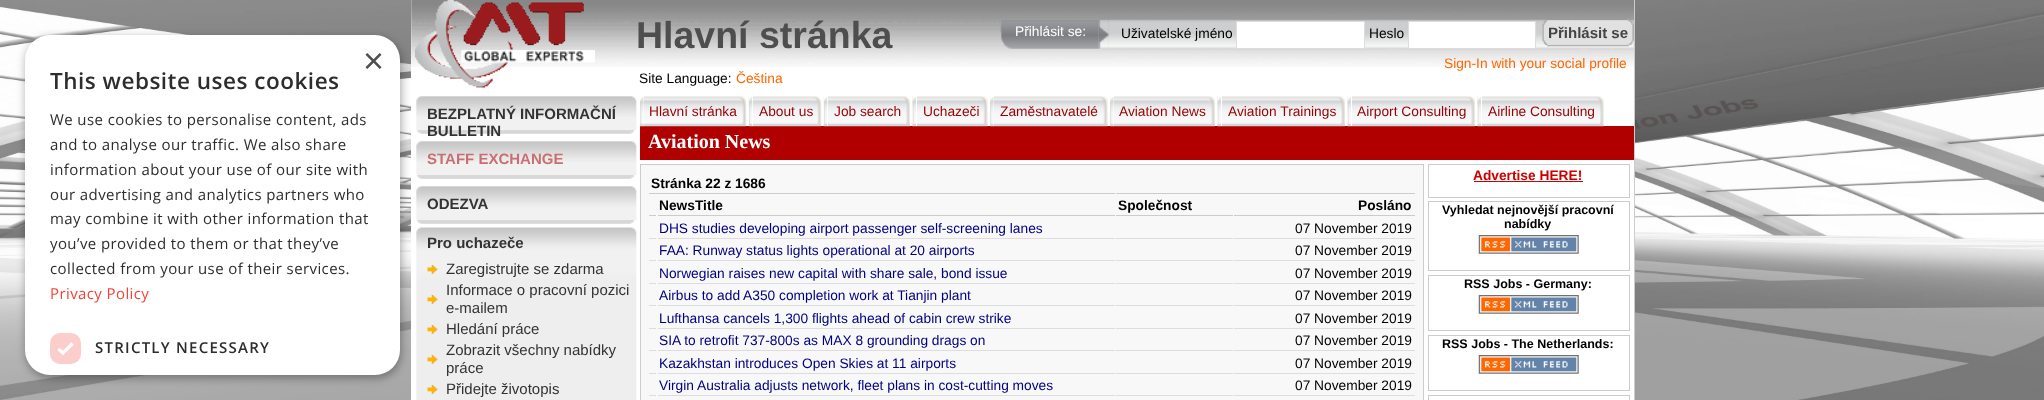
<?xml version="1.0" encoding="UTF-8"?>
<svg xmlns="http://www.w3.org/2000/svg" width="2044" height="400">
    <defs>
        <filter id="blur1" x="-50%" y="-200%" width="200%" height="500%"><feGaussianBlur stdDeviation="5"/></filter>
    </defs>
    <rect width="100%" height="100%" fill="#FFFFFF"/>
    <image x="0" y="0" width="2044" height="400" href="img_02.png"/>
    <rect x="411" y="0" width="1223" height="400" fill="#FFFFFF"/>
    <image x="411" y="0" width="1223" height="67" href="img_01.png"/>
    <image x="415" y="0" width="180" height="88" href="img_03.png"/>
    <image x="416" y="130" width="219" height="4" href="img_09.png"/>
    <image x="416" y="96" width="221" height="34" href="img_10.png"/>
    <image x="416" y="175" width="219" height="4" href="img_09.png"/>
    <image x="416" y="141" width="221" height="34" href="img_10.png"/>
    <image x="416" y="220" width="219" height="4" href="img_09.png"/>
    <image x="416" y="186" width="221" height="34" href="img_10.png"/>
    <image x="416" y="227" width="221" height="173" href="img_11.png"/>
    <rect x="26" y="38" width="375" height="340" rx="25" fill="#000000" fill-opacity="0.35" filter="url(#blur1)"/>
    <rect x="25" y="35" width="375" height="340" rx="25" fill="#FFFFFF"/>
    <text x="363" y="73" font-family="Liberation Sans" font-size="36" fill="#4E4E4E">×</text>
    <text x="50" y="89" font-family="Open Sans" font-size="22.5" font-weight="600" letter-spacing="0.5" fill="#2D2D2D">This website uses cookies</text>
    <text font-family="Open Sans" font-size="15" letter-spacing="0.4" fill="#2D2D2D">
        <tspan x="50" y="125">We use cookies to personalise content, ads</tspan>
        <tspan x="50" y="150">and to analyse our traffic. We also share</tspan>
        <tspan x="50" y="175">information about your use of our site with</tspan>
        <tspan x="50" y="200">our advertising and analytics partners who</tspan>
        <tspan x="50" y="224">may combine it with other information that</tspan>
        <tspan x="50" y="249">you’ve provided to them or that they’ve</tspan>
        <tspan x="50" y="274">collected from your use of their services.</tspan>
    </text>
    <text x="50" y="299" font-family="Open Sans" font-size="15" letter-spacing="0.4" fill="#F44336">Privacy Policy</text>
    <rect x="50" y="333" width="31" height="31" rx="10" fill="#FCCECB"/>
    <path d="M 58.5 349 L 63 353 L 72.5 343.5" fill="none" stroke="#FFFFFF" stroke-width="3.3"/>
    <text x="95" y="353" font-family="Open Sans" font-size="15" font-weight="600" letter-spacing="1.25" fill="#2D2D2D">STRICTLY NECESSARY</text>
    <rect x="1634" y="0" width="1" height="400" fill="#CCCCCC"/>
    <text x="636" y="48" font-family="Liberation Sans" font-size="37.5" font-weight="700" fill="#4E4E4E">Hlavní stránka</text>
    <image x="1000" y="20" width="99" height="29" href="img_04.png"/>
    <text x="1015" y="36" font-family="Liberation Sans" font-size="13.75" fill="#FFFFFF">Přihlásit se:</text>
    <image x="1098" y="20" width="11" height="30" href="img_05.png"/>
    <image x="1108" y="18" width="526" height="32" href="img_06.png"/>
    <text x="1121" y="38" font-family="Liberation Sans" font-size="13.75" fill="#000000">Uživatelské jméno</text>
    <rect x="1236.5" y="21.5" width="128" height="27" fill="#FFFFFF" stroke="#DDDDDD"/>
    <text x="1369" y="38" font-family="Liberation Sans" font-size="13.75" fill="#000000">Heslo</text>
    <rect x="1408.5" y="21.5" width="127" height="27" fill="#FFFFFF" stroke="#DDDDDD"/>
    <image x="1542" y="19" width="7" height="28" href="img_07.png"/>
    <image x="1547" y="18" width="87" height="29" href="img_08.png"/>
    <text x="1548" y="38" font-family="Liberation Sans" font-size="15" font-weight="700" fill="#444444">Přihlásit se</text>
    <text x="1444" y="68" font-family="Liberation Sans" font-size="13.75" fill="#FF6600">Sign-In with your social profile</text>
    <text font-family="Liberation Sans" font-size="15" font-weight="700" fill="#333333">
        <tspan x="427" y="119">BEZPLATNÝ INFORMAČNÍ</tspan>
        <tspan x="427" y="136">BULLETIN</tspan>
    </text>
    <text x="427" y="164" font-family="Liberation Sans" font-size="15" font-weight="700" fill="#CA6F71">STAFF EXCHANGE</text>
    <text x="427" y="209" font-family="Liberation Sans" font-size="15" font-weight="700" fill="#333333">ODEZVA</text>
    <text x="427" y="248" font-family="Liberation Sans" font-size="15" font-weight="700" fill="#333333">Pro uchazeče</text>
    <image x="427" y="265" width="11" height="9" href="img_12.png"/>
    <text x="446" y="274" font-family="Liberation Sans" font-size="15" fill="#333333">Zaregistrujte se zdarma</text>
    <image x="427" y="295" width="11" height="9" href="img_13.png"/>
    <text font-family="Liberation Sans" font-size="15" fill="#333333">
        <tspan x="446" y="295">Informace o pracovní pozici</tspan>
        <tspan x="446" y="313">e-mailem</tspan>
    </text>
    <image x="427" y="325" width="11" height="9" href="img_13.png"/>
    <text x="446" y="334" font-family="Liberation Sans" font-size="15" fill="#333333">Hledání práce</text>
    <image x="427" y="355" width="11" height="9" href="img_13.png"/>
    <text font-family="Liberation Sans" font-size="15" fill="#333333">
        <tspan x="446" y="355">Zobrazit všechny nabídky</tspan>
        <tspan x="446" y="373">práce</tspan>
    </text>
    <image x="427" y="385" width="11" height="9" href="img_13.png"/>
    <text x="446" y="394" font-family="Liberation Sans" font-size="15" fill="#333333">Přidejte životopis</text>
    <text x="639" y="83" font-family="Liberation Sans" font-size="13.75" fill="#000000">Site Language:</text>
    <text x="736" y="83" font-family="Liberation Sans" font-size="13.75" fill="#FF6600">Čeština</text>
    <rect x="640" y="126" width="994" height="34" fill="#B00000"/>
    <image x="640" y="96" width="107" height="31" href="img_14.png"/>
    <rect x="640" y="96" width="4" height="30" fill="#FFFFFF"/>
    <image x="640" y="96" width="4" height="31" href="img_15.png"/>
    <text x="649" y="116" font-family="Liberation Sans" font-size="13.75" fill="#990000">Hlavní stránka</text>
    <image x="748" y="96" width="74" height="31" href="img_16.png"/>
    <rect x="749" y="96" width="4" height="30" fill="#FFFFFF"/>
    <image x="749" y="96" width="4" height="31" href="img_17.png"/>
    <text x="759" y="116" font-family="Liberation Sans" font-size="13.75" fill="#990000">About us</text>
    <image x="823" y="96" width="87" height="31" href="img_18.png"/>
    <rect x="824" y="96" width="4" height="30" fill="#FFFFFF"/>
    <image x="824" y="96" width="4" height="31" href="img_17.png"/>
    <text x="834" y="116" font-family="Liberation Sans" font-size="13.75" fill="#990000">Job search</text>
    <image x="912" y="96" width="76" height="31" href="img_19.png"/>
    <rect x="913" y="96" width="4" height="30" fill="#FFFFFF"/>
    <image x="912" y="96" width="4" height="31" href="img_20.png"/>
    <text x="923" y="116" font-family="Liberation Sans" font-size="13.75" fill="#990000">Uchazeči</text>
    <image x="990" y="96" width="118" height="31" href="img_21.png"/>
    <rect x="990" y="96" width="4" height="30" fill="#FFFFFF"/>
    <image x="990" y="96" width="4" height="31" href="img_22.png"/>
    <text x="1000" y="116" font-family="Liberation Sans" font-size="13.75" fill="#990000">Zaměstnavatelé</text>
    <image x="1110" y="96" width="105" height="31" href="img_23.png"/>
    <rect x="1110" y="96" width="4" height="30" fill="#FFFFFF"/>
    <image x="1110" y="96" width="4" height="31" href="img_22.png"/>
    <text x="1119" y="116" font-family="Liberation Sans" font-size="13.75" fill="#990000">Aviation News</text>
    <image x="1217" y="96" width="128" height="31" href="img_24.png"/>
    <rect x="1218" y="96" width="4" height="30" fill="#FFFFFF"/>
    <image x="1217" y="96" width="4" height="31" href="img_20.png"/>
    <text x="1228" y="116" font-family="Liberation Sans" font-size="13.75" fill="#990000">Aviation Trainings</text>
    <image x="1347" y="96" width="128" height="31" href="img_25.png"/>
    <rect x="1348" y="96" width="4" height="30" fill="#FFFFFF"/>
    <image x="1347" y="96" width="4" height="31" href="img_20.png"/>
    <text x="1357" y="116" font-family="Liberation Sans" font-size="13.75" fill="#990000">Airport Consulting</text>
    <image x="1477" y="96" width="127" height="31" href="img_26.png"/>
    <rect x="1478" y="96" width="4" height="30" fill="#FFFFFF"/>
    <image x="1477" y="96" width="4" height="31" href="img_20.png"/>
    <text x="1488" y="116" font-family="Liberation Sans" font-size="13.75" fill="#990000">Airline Consulting</text>
    <text x="648" y="148" font-family="Liberation Serif" font-size="20" font-weight="700" fill="#FFFFFF">Aviation News</text>
    <rect x="640.5" y="164.5" width="783" height="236" fill="#F8F8F9" stroke="#CCCCCC"/>
    <rect x="649" y="193" width="466" height="1" fill="#CCCCCC"/>
    <text x="651" y="188" font-family="Liberation Sans" font-size="13.75" font-weight="700" fill="#000000">Stránka 22 z 1686</text>
    <rect x="1116" y="193" width="299" height="1" fill="#CCCCCC"/>
    <rect x="658" y="215" width="457" height="1" fill="#CCCCCC"/>
    <text x="659" y="210" font-family="Liberation Sans" font-size="13.75" font-weight="700" fill="#000000">NewsTitle</text>
    <rect x="1116" y="215" width="117" height="1" fill="#CCCCCC"/>
    <text x="1118" y="210" font-family="Liberation Sans" font-size="13.75" font-weight="700" fill="#000000">Společnost</text>
    <rect x="1234" y="215" width="181" height="1" fill="#CCCCCC"/>
    <text x="1358" y="210" font-family="Liberation Sans" font-size="13.75" font-weight="700" fill="#000000">Posláno</text>
    <rect x="649" y="215" width="7" height="1" fill="#CCCCCC"/>
    <rect x="658" y="238" width="457" height="1" fill="#DDDDDD"/>
    <text x="659" y="233" font-family="Liberation Sans" font-size="13.75" fill="#000080">DHS studies developing airport passenger self-screening lanes</text>
    <rect x="1234" y="238" width="181" height="1" fill="#DDDDDD"/>
    <text x="1295" y="233" font-family="Liberation Sans" font-size="13.75" fill="#000000">07 November 2019</text>
    <rect x="649" y="238" width="7" height="1" fill="#DDDDDD"/>
    <rect x="1116" y="238" width="117" height="1" fill="#DDDDDD"/>
    <rect x="658" y="260" width="457" height="1" fill="#DDDDDD"/>
    <text x="659" y="255" font-family="Liberation Sans" font-size="13.75" fill="#000080">FAA: Runway status lights operational at 20 airports</text>
    <rect x="1234" y="260" width="181" height="1" fill="#DDDDDD"/>
    <text x="1295" y="255" font-family="Liberation Sans" font-size="13.75" fill="#000000">07 November 2019</text>
    <rect x="649" y="260" width="7" height="1" fill="#DDDDDD"/>
    <rect x="1116" y="260" width="117" height="1" fill="#DDDDDD"/>
    <rect x="658" y="283" width="457" height="1" fill="#DDDDDD"/>
    <text x="659" y="278" font-family="Liberation Sans" font-size="13.75" fill="#000080">Norwegian raises new capital with share sale, bond issue</text>
    <rect x="1234" y="283" width="181" height="1" fill="#DDDDDD"/>
    <text x="1295" y="278" font-family="Liberation Sans" font-size="13.75" fill="#000000">07 November 2019</text>
    <rect x="649" y="283" width="7" height="1" fill="#DDDDDD"/>
    <rect x="1116" y="283" width="117" height="1" fill="#DDDDDD"/>
    <rect x="658" y="305" width="457" height="1" fill="#DDDDDD"/>
    <text x="659" y="300" font-family="Liberation Sans" font-size="13.75" fill="#000080">Airbus to add A350 completion work at Tianjin plant</text>
    <rect x="1234" y="305" width="181" height="1" fill="#DDDDDD"/>
    <text x="1295" y="300" font-family="Liberation Sans" font-size="13.75" fill="#000000">07 November 2019</text>
    <rect x="649" y="305" width="7" height="1" fill="#DDDDDD"/>
    <rect x="1116" y="305" width="117" height="1" fill="#DDDDDD"/>
    <rect x="658" y="328" width="457" height="1" fill="#DDDDDD"/>
    <text x="659" y="323" font-family="Liberation Sans" font-size="13.75" fill="#000080">Lufthansa cancels 1,300 flights ahead of cabin crew strike</text>
    <rect x="1234" y="328" width="181" height="1" fill="#DDDDDD"/>
    <text x="1295" y="323" font-family="Liberation Sans" font-size="13.75" fill="#000000">07 November 2019</text>
    <rect x="649" y="328" width="7" height="1" fill="#DDDDDD"/>
    <rect x="1116" y="328" width="117" height="1" fill="#DDDDDD"/>
    <rect x="658" y="350" width="457" height="1" fill="#DDDDDD"/>
    <text x="659" y="345" font-family="Liberation Sans" font-size="13.75" fill="#000080">SIA to retrofit 737-800s as MAX 8 grounding drags on</text>
    <rect x="1234" y="350" width="181" height="1" fill="#DDDDDD"/>
    <text x="1295" y="345" font-family="Liberation Sans" font-size="13.75" fill="#000000">07 November 2019</text>
    <rect x="649" y="350" width="7" height="1" fill="#DDDDDD"/>
    <rect x="1116" y="350" width="117" height="1" fill="#DDDDDD"/>
    <rect x="658" y="373" width="457" height="1" fill="#DDDDDD"/>
    <text x="659" y="368" font-family="Liberation Sans" font-size="13.75" fill="#000080">Kazakhstan introduces Open Skies at 11 airports</text>
    <rect x="1234" y="373" width="181" height="1" fill="#DDDDDD"/>
    <text x="1295" y="368" font-family="Liberation Sans" font-size="13.75" fill="#000000">07 November 2019</text>
    <rect x="649" y="373" width="7" height="1" fill="#DDDDDD"/>
    <rect x="1116" y="373" width="117" height="1" fill="#DDDDDD"/>
    <rect x="658" y="395" width="457" height="1" fill="#DDDDDD"/>
    <text x="659" y="390" font-family="Liberation Sans" font-size="13.75" fill="#000080">Virgin Australia adjusts network, fleet plans in cost-cutting moves</text>
    <rect x="1234" y="395" width="181" height="1" fill="#DDDDDD"/>
    <text x="1295" y="390" font-family="Liberation Sans" font-size="13.75" fill="#000000">07 November 2019</text>
    <rect x="649" y="395" width="7" height="1" fill="#DDDDDD"/>
    <rect x="1116" y="395" width="117" height="1" fill="#DDDDDD"/>
    <rect x="1428.5" y="164.5" width="201" height="33" fill="none" stroke="#CCCCCC"/>
    <text x="1473" y="180" font-family="Liberation Sans" font-size="13.75" font-weight="700" fill="#CC0000">Advertise HERE!</text>
    <rect x="1474" y="181" width="109" height="1" fill="#CC0000"/>
    <rect x="1428.5" y="201.5" width="201" height="69" fill="none" stroke="#CCCCCC"/>
    <text x="1442" y="214" font-family="Liberation Sans" font-size="12.5" font-weight="700" fill="#000000">Vyhledat nejnovější pracovní</text>
    <text x="1504" y="228" font-family="Liberation Sans" font-size="12.5" font-weight="700" fill="#000000">nabídky</text>
    <image x="1478" y="235" width="101" height="19" href="img_27.png"/>
    <rect x="1428.5" y="275.5" width="201" height="55" fill="none" stroke="#CCCCCC"/>
    <text x="1464" y="288" font-family="Liberation Sans" font-size="12.5" font-weight="700" fill="#000000">RSS Jobs - Germany:</text>
    <image x="1478" y="295" width="101" height="19" href="img_27.png"/>
    <rect x="1428.5" y="335.5" width="201" height="55" fill="none" stroke="#CCCCCC"/>
    <text x="1442" y="348" font-family="Liberation Sans" font-size="12.5" font-weight="700" fill="#000000">RSS Jobs - The Netherlands:</text>
    <image x="1478" y="355" width="101" height="19" href="img_27.png"/>
    <rect x="1428.5" y="395.5" width="201" height="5" fill="none" stroke="#CCCCCC"/>
</svg>
